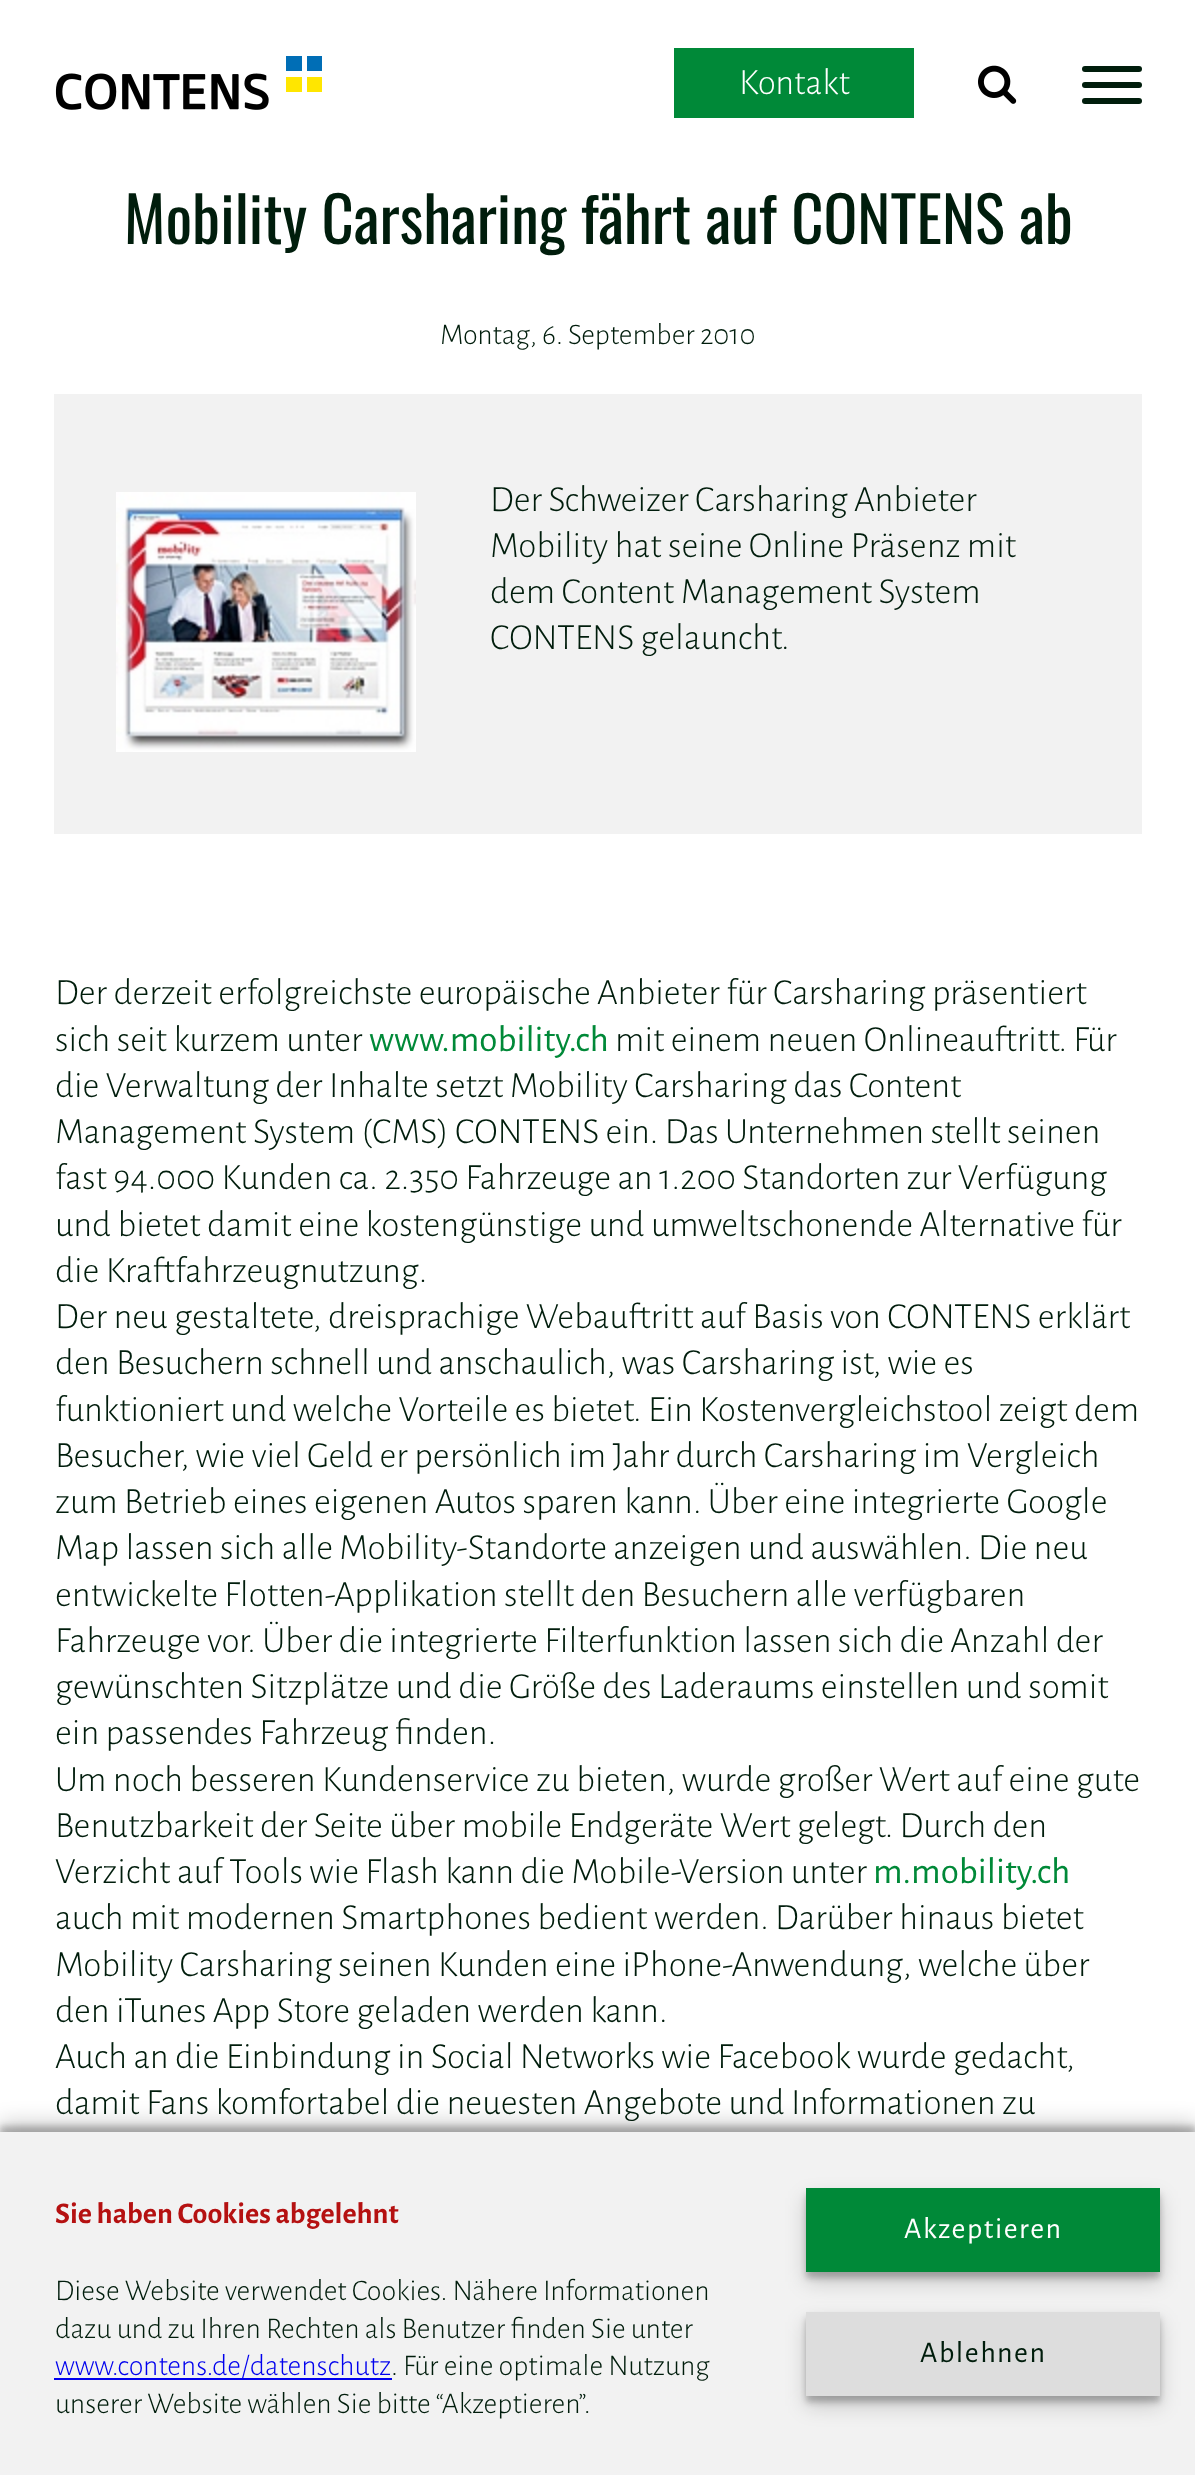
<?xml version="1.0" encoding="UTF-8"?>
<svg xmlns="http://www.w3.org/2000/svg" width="1195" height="2475">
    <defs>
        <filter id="blur1" x="-50%" y="-200%" width="200%" height="500%"><feGaussianBlur stdDeviation="3"/></filter>
        <filter id="blur2" x="-50%" y="-200%" width="200%" height="500%"><feGaussianBlur stdDeviation="10"/></filter>
    </defs>
    <rect width="100%" height="100%" fill="#FFFFFF"/>
    <image x="55" y="56" width="267" height="54" href="img_01.png"/>
    <rect x="674" y="48" width="240" height="70" fill="#008938"/>
    <text x="739" y="94" font-family="Alegreya Sans" font-size="37" font-weight="300" fill="#FFFFFF">Kontakt</text>
    <image x="978" y="65" width="39" height="39" href="img_02.png"/>
    <rect x="1082" y="82" width="60" height="6" rx="3" fill="#001D0C"/>
    <rect x="1082" y="66" width="60" height="6" rx="3" fill="#001D0C"/>
    <rect x="1082" y="98" width="60" height="6" rx="3" fill="#001D0C"/>
    <text x="124" y="244" font-family="Oswald" font-size="62.75" fill="#001D0C">Mobility Carsharing fährt auf CONTENS ab</text>
    <text x="440" y="344" font-family="Alegreya Sans" font-size="30.1" font-weight="300" fill="#001D0C">Montag, 6. September 2010</text>
    <rect x="54" y="394" width="1088" height="440" fill="#F2F2F2"/>
    <image x="116" y="492" width="300" height="260" href="img_03.png"/>
    <text font-family="Alegreya Sans" font-size="37" font-weight="300" fill="#001D0C">
        <tspan x="490" y="511">Der Schweizer Carsharing Anbieter</tspan>
        <tspan x="490" y="557">Mobility hat seine Online Präsenz mit</tspan>
        <tspan x="490" y="603">dem Content Management System</tspan>
        <tspan x="490" y="649">CONTENS gelauncht.</tspan>
    </text>
    <text font-family="Alegreya Sans" font-size="37" font-weight="300" fill="#001D0C">
        <tspan x="55" y="1004">Der derzeit erfolgreichste europäische Anbieter für Carsharing präsentiert</tspan>
        <tspan x="55" y="1051">sich seit kurzem unter</tspan>
    </text>
    <text x="369" y="1051" font-family="Alegreya Sans" font-size="37" fill="#008938">www.mobility.ch</text>
    <text x="615" y="1051" font-family="Alegreya Sans" font-size="37" font-weight="300" fill="#001D0C">mit einem neuen Onlineauftritt. Für</text>
    <text font-family="Alegreya Sans" font-size="37" font-weight="300" fill="#001D0C">
        <tspan x="55" y="1097">die Verwaltung der Inhalte setzt Mobility Carsharing das Content</tspan>
        <tspan x="55" y="1143">Management System (CMS) CONTENS ein. Das Unternehmen stellt seinen</tspan>
        <tspan x="55" y="1189">fast 94.000 Kunden ca. 2.350 Fahrzeuge an 1.200 Standorten zur Verfügung</tspan>
        <tspan x="55" y="1236">und bietet damit eine kostengünstige und umweltschonende Alternative für</tspan>
        <tspan x="55" y="1282">die Kraftfahrzeugnutzung.</tspan>
        <tspan x="55" y="1328">Der neu gestaltete, dreisprachige Webauftritt auf Basis von CONTENS erklärt</tspan>
        <tspan x="55" y="1374">den Besuchern schnell und anschaulich, was Carsharing ist, wie es</tspan>
        <tspan x="55" y="1421">funktioniert und welche Vorteile es bietet. Ein Kostenvergleichstool zeigt dem</tspan>
        <tspan x="55" y="1467">Besucher, wie viel Geld er persönlich im Jahr durch Carsharing im Vergleich</tspan>
        <tspan x="55" y="1513">zum Betrieb eines eigenen Autos sparen kann. Über eine integrierte Google</tspan>
        <tspan x="55" y="1559">Map lassen sich alle Mobility-Standorte anzeigen und auswählen. Die neu</tspan>
        <tspan x="55" y="1606">entwickelte Flotten-Applikation stellt den Besuchern alle verfügbaren</tspan>
        <tspan x="55" y="1652">Fahrzeuge vor. Über die integrierte Filterfunktion lassen sich die Anzahl der</tspan>
        <tspan x="55" y="1698">gewünschten Sitzplätze und die Größe des Laderaums einstellen und somit</tspan>
        <tspan x="55" y="1744">ein passendes Fahrzeug finden.</tspan>
        <tspan x="55" y="1791">Um noch besseren Kundenservice zu bieten, wurde großer Wert auf eine gute</tspan>
        <tspan x="55" y="1837">Benutzbarkeit der Seite über mobile Endgeräte Wert gelegt. Durch den</tspan>
        <tspan x="55" y="1883">Verzicht auf Tools wie Flash kann die Mobile-Version unter</tspan>
    </text>
    <text x="873" y="1883" font-family="Alegreya Sans" font-size="37" fill="#008938">m.mobility.ch</text>
    <text font-family="Alegreya Sans" font-size="37" font-weight="300" fill="#001D0C">
        <tspan x="55" y="1929">auch mit modernen Smartphones bedient werden. Darüber hinaus bietet</tspan>
        <tspan x="55" y="1976">Mobility Carsharing seinen Kunden eine iPhone-Anwendung, welche über</tspan>
        <tspan x="55" y="2022">den iTunes App Store geladen werden kann.</tspan>
        <tspan x="55" y="2068">Auch an die Einbindung in Social Networks wie Facebook wurde gedacht,</tspan>
        <tspan x="55" y="2114">damit Fans komfortabel die neuesten Angebote und Informationen zu</tspan>
    </text>
    <rect x="0" y="2126" width="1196" height="344" fill="#000000" fill-opacity="0.23" filter="url(#blur1)"/>
    <rect x="0" y="2122" width="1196" height="344" fill="#000000" fill-opacity="0.19" filter="url(#blur2)"/>
    <rect x="0" y="2132" width="1195" height="343" fill="#F2F2F2"/>
    <text x="55" y="2223" font-family="Alegreya Sans" font-size="30.1" font-weight="700" fill="#B51111">Sie haben Cookies abgelehnt</text>
    <text font-family="Alegreya Sans" font-size="30.1" font-weight="300" fill="#001D0C">
        <tspan x="55" y="2300">Diese Website verwendet Cookies. Nähere Informationen</tspan>
        <tspan x="55" y="2338">dazu und zu Ihren Rechten als Benutzer finden Sie unter</tspan>
    </text>
    <rect x="54" y="2378" width="338" height="2" fill="#0000EE"/>
    <text x="55" y="2375" font-family="Alegreya Sans" font-size="30.1" font-weight="300" fill="#0000EE">www.contens.de/datenschutz</text>
    <text x="391" y="2375" font-family="Alegreya Sans" font-size="30.1" font-weight="300" fill="#001D0C">. Für eine optimale Nutzung</text>
    <text x="55" y="2413" font-family="Alegreya Sans" font-size="30.1" font-weight="300" fill="#001D0C">unserer Website wählen Sie bitte “Akzeptieren”.</text>
    <rect x="806" y="2194" width="354" height="84" fill="#000000" fill-opacity="0.23" filter="url(#blur1)"/>
    <rect x="806" y="2198" width="354" height="84" fill="#000000" fill-opacity="0.19" filter="url(#blur2)"/>
    <rect x="806" y="2188" width="354" height="84" fill="#008938"/>
    <text x="904" y="2238" font-family="Alegreya Sans" font-size="30.1" letter-spacing="1.5" fill="#FFFFFF">Akzeptieren</text>
    <rect x="806" y="2318" width="354" height="84" fill="#000000" fill-opacity="0.23" filter="url(#blur1)"/>
    <rect x="806" y="2322" width="354" height="84" fill="#000000" fill-opacity="0.19" filter="url(#blur2)"/>
    <rect x="806" y="2312" width="354" height="84" fill="#DDDDDD"/>
    <text x="920" y="2362" font-family="Alegreya Sans" font-size="30.1" letter-spacing="1.5" fill="#001D0C">Ablehnen</text>
</svg>
